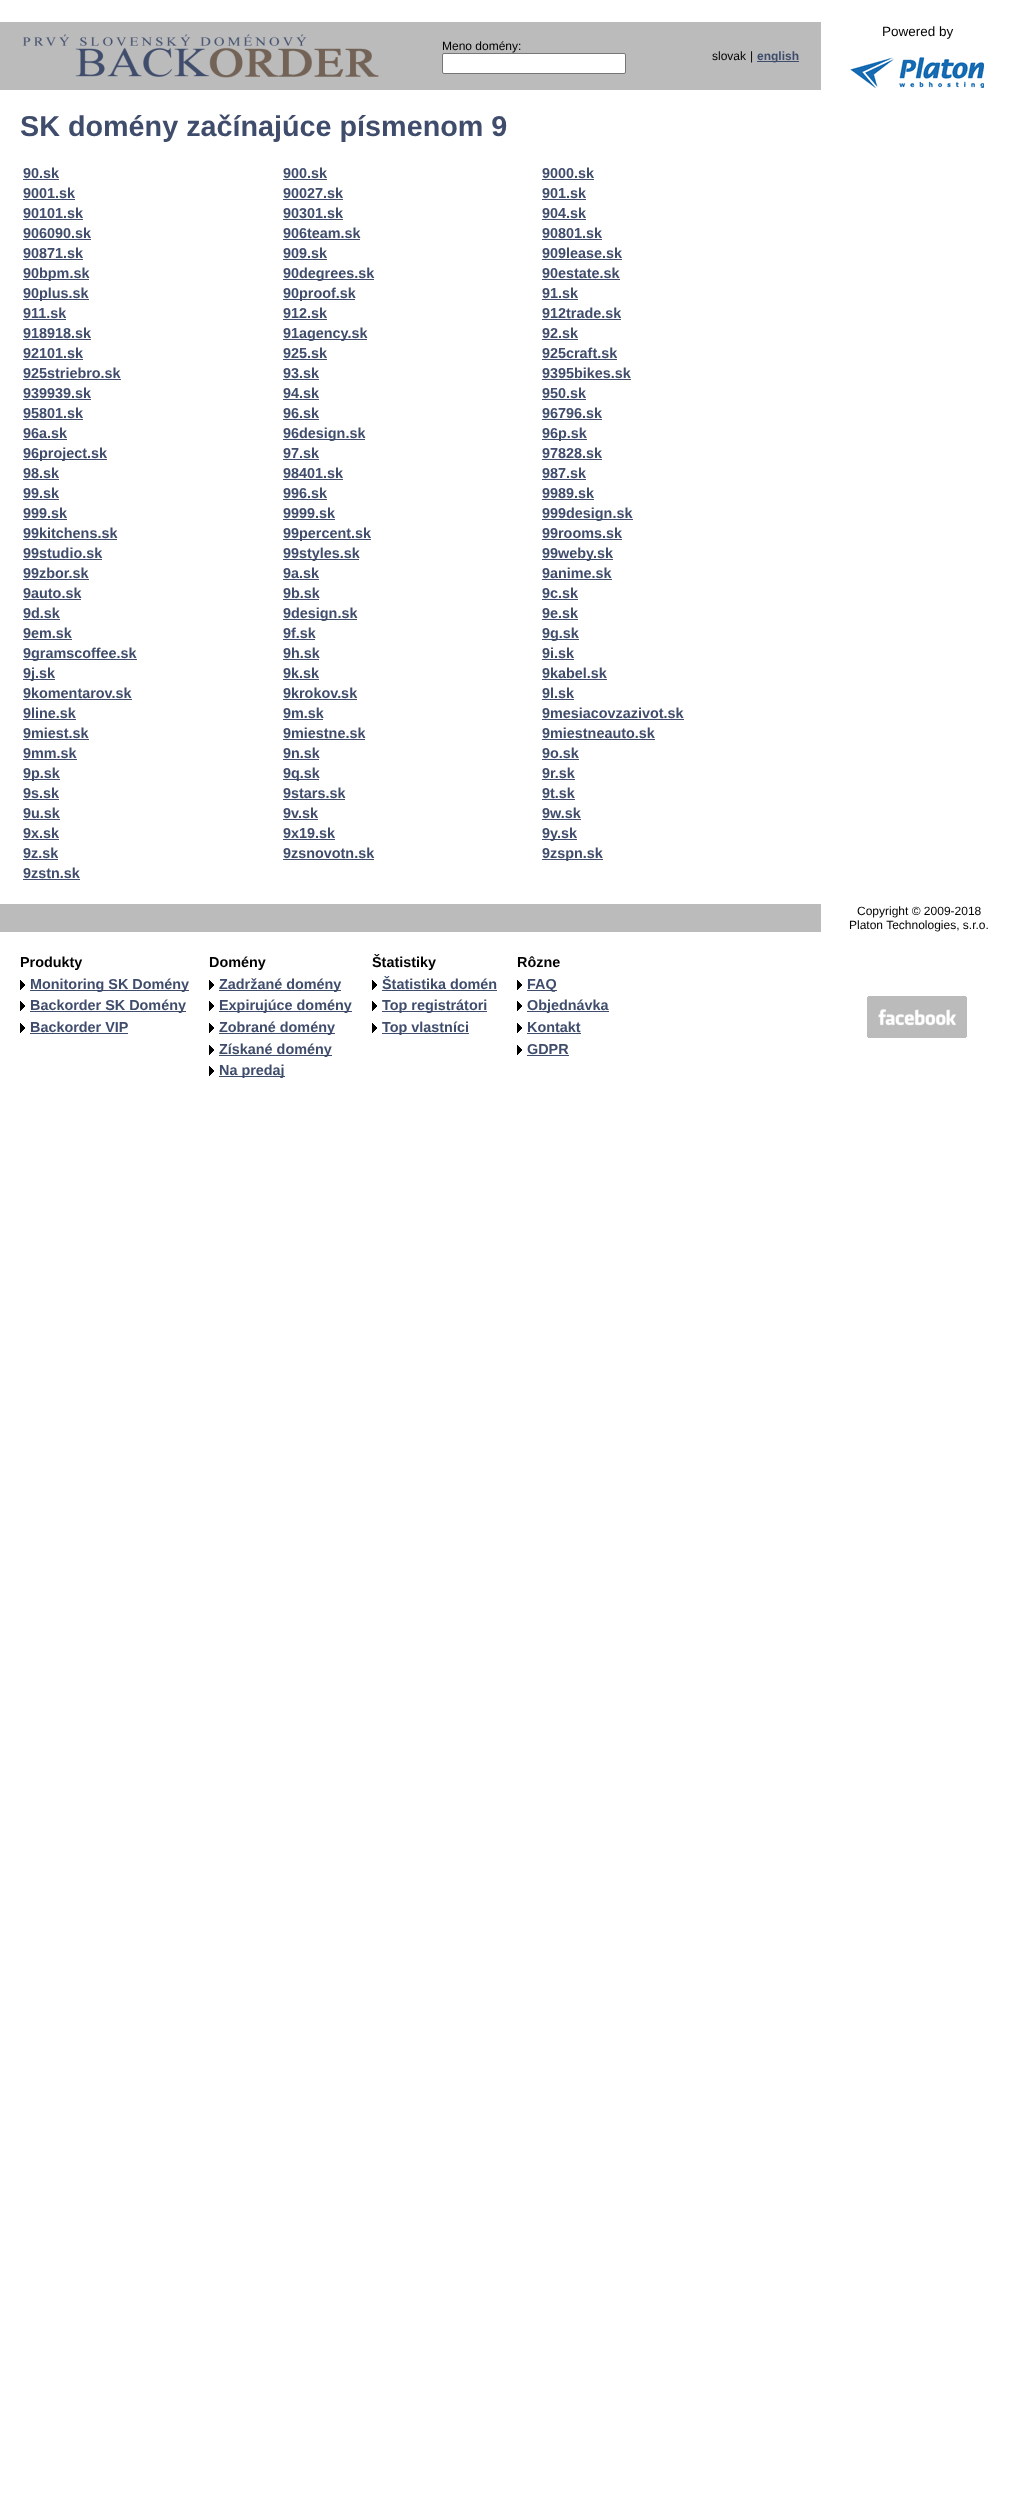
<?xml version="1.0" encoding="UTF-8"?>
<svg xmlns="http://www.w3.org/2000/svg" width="1014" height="2510">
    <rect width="100%" height="100%" fill="#FFFFFF"/>
    <rect x="0" y="22" width="821" height="68" fill="#BBBBBB"/>
    <image x="22" y="34" width="357" height="44" href="img_01.png"/>
    <text x="882" y="36" font-family="Liberation Sans" font-size="13.5" fill="#000000">Powered by</text>
    <image x="850" y="57" width="134" height="31" href="img_02.png"/>
    <text x="442" y="50" font-family="Liberation Sans" font-size="12" fill="#000000">Meno domény:</text>
    <rect x="442.5" y="53.5" width="183" height="20" rx="1.5" fill="#FFFFFF" stroke="#767676"/>
    <text x="712" y="60" font-family="Liberation Sans" font-size="12" fill="#000000">slovak</text>
    <text x="750" y="60" font-family="Liberation Sans" font-size="12" fill="#000000">|</text>
    <rect x="757" y="61" width="42" height="1" fill="#3F4C6B"/>
    <text x="757" y="60" font-family="Liberation Sans" font-size="12" font-weight="700" fill="#3F4C6B">english</text>
    <text x="20" y="136" font-family="Liberation Sans" font-size="28.75" font-weight="700" fill="#3F4C6B">SK domény začínajúce písmenom 9</text>
    <text x="23" y="178" font-family="Liberation Sans" font-size="14.4" font-weight="700" fill="#3F4C6B">90.sk</text>
    <rect x="23" y="179" width="36" height="1" fill="#3F4C6B"/>
    <text x="283" y="178" font-family="Liberation Sans" font-size="14.4" font-weight="700" fill="#3F4C6B">900.sk</text>
    <rect x="283" y="179" width="44" height="1" fill="#3F4C6B"/>
    <text x="542" y="178" font-family="Liberation Sans" font-size="14.4" font-weight="700" fill="#3F4C6B">9000.sk</text>
    <rect x="542" y="179" width="52" height="1" fill="#3F4C6B"/>
    <text x="23" y="198" font-family="Liberation Sans" font-size="14.4" font-weight="700" fill="#3F4C6B">9001.sk</text>
    <rect x="23" y="199" width="52" height="1" fill="#3F4C6B"/>
    <text x="283" y="198" font-family="Liberation Sans" font-size="14.4" font-weight="700" fill="#3F4C6B">90027.sk</text>
    <rect x="283" y="199" width="60" height="1" fill="#3F4C6B"/>
    <text x="542" y="198" font-family="Liberation Sans" font-size="14.4" font-weight="700" fill="#3F4C6B">901.sk</text>
    <rect x="542" y="199" width="44" height="1" fill="#3F4C6B"/>
    <text x="23" y="218" font-family="Liberation Sans" font-size="14.4" font-weight="700" fill="#3F4C6B">90101.sk</text>
    <rect x="23" y="219" width="60" height="1" fill="#3F4C6B"/>
    <text x="283" y="218" font-family="Liberation Sans" font-size="14.4" font-weight="700" fill="#3F4C6B">90301.sk</text>
    <rect x="283" y="219" width="60" height="1" fill="#3F4C6B"/>
    <text x="542" y="218" font-family="Liberation Sans" font-size="14.4" font-weight="700" fill="#3F4C6B">904.sk</text>
    <rect x="542" y="219" width="44" height="1" fill="#3F4C6B"/>
    <text x="23" y="238" font-family="Liberation Sans" font-size="14.4" font-weight="700" fill="#3F4C6B">906090.sk</text>
    <rect x="23" y="239" width="68" height="1" fill="#3F4C6B"/>
    <text x="283" y="238" font-family="Liberation Sans" font-size="14.4" font-weight="700" fill="#3F4C6B">906team.sk</text>
    <rect x="283" y="239" width="77" height="1" fill="#3F4C6B"/>
    <text x="542" y="238" font-family="Liberation Sans" font-size="14.4" font-weight="700" fill="#3F4C6B">90801.sk</text>
    <rect x="542" y="239" width="60" height="1" fill="#3F4C6B"/>
    <text x="23" y="258" font-family="Liberation Sans" font-size="14.4" font-weight="700" fill="#3F4C6B">90871.sk</text>
    <rect x="23" y="259" width="60" height="1" fill="#3F4C6B"/>
    <text x="283" y="258" font-family="Liberation Sans" font-size="14.4" font-weight="700" fill="#3F4C6B">909.sk</text>
    <rect x="283" y="259" width="44" height="1" fill="#3F4C6B"/>
    <text x="542" y="258" font-family="Liberation Sans" font-size="14.4" font-weight="700" fill="#3F4C6B">909lease.sk</text>
    <rect x="542" y="259" width="80" height="1" fill="#3F4C6B"/>
    <rect x="23" y="279" width="66" height="1" fill="#3F4C6B"/>
    <text x="23" y="278" font-family="Liberation Sans" font-size="14.4" font-weight="700" fill="#3F4C6B">90bpm.sk</text>
    <rect x="283" y="279" width="91" height="1" fill="#3F4C6B"/>
    <text x="283" y="278" font-family="Liberation Sans" font-size="14.4" font-weight="700" fill="#3F4C6B">90degrees.sk</text>
    <text x="542" y="278" font-family="Liberation Sans" font-size="14.4" font-weight="700" fill="#3F4C6B">90estate.sk</text>
    <rect x="542" y="279" width="78" height="1" fill="#3F4C6B"/>
    <rect x="23" y="299" width="66" height="1" fill="#3F4C6B"/>
    <text x="23" y="298" font-family="Liberation Sans" font-size="14.4" font-weight="700" fill="#3F4C6B">90plus.sk</text>
    <rect x="283" y="299" width="72" height="1" fill="#3F4C6B"/>
    <text x="283" y="298" font-family="Liberation Sans" font-size="14.4" font-weight="700" fill="#3F4C6B">90proof.sk</text>
    <text x="542" y="298" font-family="Liberation Sans" font-size="14.4" font-weight="700" fill="#3F4C6B">91.sk</text>
    <rect x="542" y="299" width="36" height="1" fill="#3F4C6B"/>
    <text x="23" y="318" font-family="Liberation Sans" font-size="14.4" font-weight="700" fill="#3F4C6B">911.sk</text>
    <rect x="23" y="319" width="43" height="1" fill="#3F4C6B"/>
    <text x="283" y="318" font-family="Liberation Sans" font-size="14.4" font-weight="700" fill="#3F4C6B">912.sk</text>
    <rect x="283" y="319" width="44" height="1" fill="#3F4C6B"/>
    <text x="542" y="318" font-family="Liberation Sans" font-size="14.4" font-weight="700" fill="#3F4C6B">912trade.sk</text>
    <rect x="542" y="319" width="79" height="1" fill="#3F4C6B"/>
    <text x="23" y="338" font-family="Liberation Sans" font-size="14.4" font-weight="700" fill="#3F4C6B">918918.sk</text>
    <rect x="23" y="339" width="68" height="1" fill="#3F4C6B"/>
    <rect x="283" y="339" width="84" height="1" fill="#3F4C6B"/>
    <text x="283" y="338" font-family="Liberation Sans" font-size="14.4" font-weight="700" fill="#3F4C6B">91agency.sk</text>
    <text x="542" y="338" font-family="Liberation Sans" font-size="14.4" font-weight="700" fill="#3F4C6B">92.sk</text>
    <rect x="542" y="339" width="36" height="1" fill="#3F4C6B"/>
    <text x="23" y="358" font-family="Liberation Sans" font-size="14.4" font-weight="700" fill="#3F4C6B">92101.sk</text>
    <rect x="23" y="359" width="60" height="1" fill="#3F4C6B"/>
    <text x="283" y="358" font-family="Liberation Sans" font-size="14.4" font-weight="700" fill="#3F4C6B">925.sk</text>
    <rect x="283" y="359" width="44" height="1" fill="#3F4C6B"/>
    <text x="542" y="358" font-family="Liberation Sans" font-size="14.4" font-weight="700" fill="#3F4C6B">925craft.sk</text>
    <rect x="542" y="359" width="75" height="1" fill="#3F4C6B"/>
    <text x="23" y="378" font-family="Liberation Sans" font-size="14.4" font-weight="700" fill="#3F4C6B">925striebro.sk</text>
    <rect x="23" y="379" width="98" height="1" fill="#3F4C6B"/>
    <text x="283" y="378" font-family="Liberation Sans" font-size="14.4" font-weight="700" fill="#3F4C6B">93.sk</text>
    <rect x="283" y="379" width="36" height="1" fill="#3F4C6B"/>
    <text x="542" y="378" font-family="Liberation Sans" font-size="14.4" font-weight="700" fill="#3F4C6B">9395bikes.sk</text>
    <rect x="542" y="379" width="89" height="1" fill="#3F4C6B"/>
    <text x="23" y="398" font-family="Liberation Sans" font-size="14.4" font-weight="700" fill="#3F4C6B">939939.sk</text>
    <rect x="23" y="399" width="68" height="1" fill="#3F4C6B"/>
    <text x="283" y="398" font-family="Liberation Sans" font-size="14.4" font-weight="700" fill="#3F4C6B">94.sk</text>
    <rect x="283" y="399" width="36" height="1" fill="#3F4C6B"/>
    <text x="542" y="398" font-family="Liberation Sans" font-size="14.4" font-weight="700" fill="#3F4C6B">950.sk</text>
    <rect x="542" y="399" width="44" height="1" fill="#3F4C6B"/>
    <text x="23" y="418" font-family="Liberation Sans" font-size="14.4" font-weight="700" fill="#3F4C6B">95801.sk</text>
    <rect x="23" y="419" width="60" height="1" fill="#3F4C6B"/>
    <text x="283" y="418" font-family="Liberation Sans" font-size="14.4" font-weight="700" fill="#3F4C6B">96.sk</text>
    <rect x="283" y="419" width="36" height="1" fill="#3F4C6B"/>
    <text x="542" y="418" font-family="Liberation Sans" font-size="14.4" font-weight="700" fill="#3F4C6B">96796.sk</text>
    <rect x="542" y="419" width="60" height="1" fill="#3F4C6B"/>
    <text x="23" y="438" font-family="Liberation Sans" font-size="14.4" font-weight="700" fill="#3F4C6B">96a.sk</text>
    <rect x="23" y="439" width="44" height="1" fill="#3F4C6B"/>
    <rect x="283" y="439" width="82" height="1" fill="#3F4C6B"/>
    <text x="283" y="438" font-family="Liberation Sans" font-size="14.4" font-weight="700" fill="#3F4C6B">96design.sk</text>
    <rect x="542" y="439" width="45" height="1" fill="#3F4C6B"/>
    <text x="542" y="438" font-family="Liberation Sans" font-size="14.4" font-weight="700" fill="#3F4C6B">96p.sk</text>
    <rect x="23" y="459" width="84" height="1" fill="#3F4C6B"/>
    <text x="23" y="458" font-family="Liberation Sans" font-size="14.4" font-weight="700" fill="#3F4C6B">96project.sk</text>
    <text x="283" y="458" font-family="Liberation Sans" font-size="14.4" font-weight="700" fill="#3F4C6B">97.sk</text>
    <rect x="283" y="459" width="36" height="1" fill="#3F4C6B"/>
    <text x="542" y="458" font-family="Liberation Sans" font-size="14.4" font-weight="700" fill="#3F4C6B">97828.sk</text>
    <rect x="542" y="459" width="60" height="1" fill="#3F4C6B"/>
    <text x="23" y="478" font-family="Liberation Sans" font-size="14.4" font-weight="700" fill="#3F4C6B">98.sk</text>
    <rect x="23" y="479" width="36" height="1" fill="#3F4C6B"/>
    <text x="283" y="478" font-family="Liberation Sans" font-size="14.4" font-weight="700" fill="#3F4C6B">98401.sk</text>
    <rect x="283" y="479" width="60" height="1" fill="#3F4C6B"/>
    <text x="542" y="478" font-family="Liberation Sans" font-size="14.4" font-weight="700" fill="#3F4C6B">987.sk</text>
    <rect x="542" y="479" width="44" height="1" fill="#3F4C6B"/>
    <text x="23" y="498" font-family="Liberation Sans" font-size="14.4" font-weight="700" fill="#3F4C6B">99.sk</text>
    <rect x="23" y="499" width="36" height="1" fill="#3F4C6B"/>
    <text x="283" y="498" font-family="Liberation Sans" font-size="14.4" font-weight="700" fill="#3F4C6B">996.sk</text>
    <rect x="283" y="499" width="44" height="1" fill="#3F4C6B"/>
    <text x="542" y="498" font-family="Liberation Sans" font-size="14.4" font-weight="700" fill="#3F4C6B">9989.sk</text>
    <rect x="542" y="499" width="52" height="1" fill="#3F4C6B"/>
    <text x="23" y="518" font-family="Liberation Sans" font-size="14.4" font-weight="700" fill="#3F4C6B">999.sk</text>
    <rect x="23" y="519" width="44" height="1" fill="#3F4C6B"/>
    <text x="283" y="518" font-family="Liberation Sans" font-size="14.4" font-weight="700" fill="#3F4C6B">9999.sk</text>
    <rect x="283" y="519" width="52" height="1" fill="#3F4C6B"/>
    <rect x="542" y="519" width="91" height="1" fill="#3F4C6B"/>
    <text x="542" y="518" font-family="Liberation Sans" font-size="14.4" font-weight="700" fill="#3F4C6B">999design.sk</text>
    <text x="23" y="538" font-family="Liberation Sans" font-size="14.4" font-weight="700" fill="#3F4C6B">99kitchens.sk</text>
    <rect x="23" y="539" width="94" height="1" fill="#3F4C6B"/>
    <rect x="283" y="539" width="88" height="1" fill="#3F4C6B"/>
    <text x="283" y="538" font-family="Liberation Sans" font-size="14.4" font-weight="700" fill="#3F4C6B">99percent.sk</text>
    <text x="542" y="538" font-family="Liberation Sans" font-size="14.4" font-weight="700" fill="#3F4C6B">99rooms.sk</text>
    <rect x="542" y="539" width="80" height="1" fill="#3F4C6B"/>
    <text x="23" y="558" font-family="Liberation Sans" font-size="14.4" font-weight="700" fill="#3F4C6B">99studio.sk</text>
    <rect x="23" y="559" width="79" height="1" fill="#3F4C6B"/>
    <rect x="283" y="559" width="76" height="1" fill="#3F4C6B"/>
    <text x="283" y="558" font-family="Liberation Sans" font-size="14.4" font-weight="700" fill="#3F4C6B">99styles.sk</text>
    <rect x="542" y="559" width="71" height="1" fill="#3F4C6B"/>
    <text x="542" y="558" font-family="Liberation Sans" font-size="14.4" font-weight="700" fill="#3F4C6B">99weby.sk</text>
    <text x="23" y="578" font-family="Liberation Sans" font-size="14.4" font-weight="700" fill="#3F4C6B">99zbor.sk</text>
    <rect x="23" y="579" width="66" height="1" fill="#3F4C6B"/>
    <text x="283" y="578" font-family="Liberation Sans" font-size="14.4" font-weight="700" fill="#3F4C6B">9a.sk</text>
    <rect x="283" y="579" width="36" height="1" fill="#3F4C6B"/>
    <text x="542" y="578" font-family="Liberation Sans" font-size="14.4" font-weight="700" fill="#3F4C6B">9anime.sk</text>
    <rect x="542" y="579" width="70" height="1" fill="#3F4C6B"/>
    <text x="23" y="598" font-family="Liberation Sans" font-size="14.4" font-weight="700" fill="#3F4C6B">9auto.sk</text>
    <rect x="23" y="599" width="58" height="1" fill="#3F4C6B"/>
    <text x="283" y="598" font-family="Liberation Sans" font-size="14.4" font-weight="700" fill="#3F4C6B">9b.sk</text>
    <rect x="283" y="599" width="36" height="1" fill="#3F4C6B"/>
    <text x="542" y="598" font-family="Liberation Sans" font-size="14.4" font-weight="700" fill="#3F4C6B">9c.sk</text>
    <rect x="542" y="599" width="36" height="1" fill="#3F4C6B"/>
    <text x="23" y="618" font-family="Liberation Sans" font-size="14.4" font-weight="700" fill="#3F4C6B">9d.sk</text>
    <rect x="23" y="619" width="37" height="1" fill="#3F4C6B"/>
    <rect x="283" y="619" width="74" height="1" fill="#3F4C6B"/>
    <text x="283" y="618" font-family="Liberation Sans" font-size="14.4" font-weight="700" fill="#3F4C6B">9design.sk</text>
    <text x="542" y="618" font-family="Liberation Sans" font-size="14.4" font-weight="700" fill="#3F4C6B">9e.sk</text>
    <rect x="542" y="619" width="36" height="1" fill="#3F4C6B"/>
    <text x="23" y="638" font-family="Liberation Sans" font-size="14.4" font-weight="700" fill="#3F4C6B">9em.sk</text>
    <rect x="23" y="639" width="49" height="1" fill="#3F4C6B"/>
    <text x="283" y="638" font-family="Liberation Sans" font-size="14.4" font-weight="700" fill="#3F4C6B">9f.sk</text>
    <rect x="283" y="639" width="32" height="1" fill="#3F4C6B"/>
    <rect x="542" y="639" width="37" height="1" fill="#3F4C6B"/>
    <text x="542" y="638" font-family="Liberation Sans" font-size="14.4" font-weight="700" fill="#3F4C6B">9g.sk</text>
    <rect x="23" y="659" width="114" height="1" fill="#3F4C6B"/>
    <text x="23" y="658" font-family="Liberation Sans" font-size="14.4" font-weight="700" fill="#3F4C6B">9gramscoffee.sk</text>
    <text x="283" y="658" font-family="Liberation Sans" font-size="14.4" font-weight="700" fill="#3F4C6B">9h.sk</text>
    <rect x="283" y="659" width="36" height="1" fill="#3F4C6B"/>
    <text x="542" y="658" font-family="Liberation Sans" font-size="14.4" font-weight="700" fill="#3F4C6B">9i.sk</text>
    <rect x="542" y="659" width="32" height="1" fill="#3F4C6B"/>
    <rect x="23" y="679" width="32" height="1" fill="#3F4C6B"/>
    <text x="23" y="678" font-family="Liberation Sans" font-size="14.4" font-weight="700" fill="#3F4C6B">9j.sk</text>
    <text x="283" y="678" font-family="Liberation Sans" font-size="14.4" font-weight="700" fill="#3F4C6B">9k.sk</text>
    <rect x="283" y="679" width="36" height="1" fill="#3F4C6B"/>
    <text x="542" y="678" font-family="Liberation Sans" font-size="14.4" font-weight="700" fill="#3F4C6B">9kabel.sk</text>
    <rect x="542" y="679" width="65" height="1" fill="#3F4C6B"/>
    <text x="23" y="698" font-family="Liberation Sans" font-size="14.4" font-weight="700" fill="#3F4C6B">9komentarov.sk</text>
    <rect x="23" y="699" width="109" height="1" fill="#3F4C6B"/>
    <text x="283" y="698" font-family="Liberation Sans" font-size="14.4" font-weight="700" fill="#3F4C6B">9krokov.sk</text>
    <rect x="283" y="699" width="74" height="1" fill="#3F4C6B"/>
    <text x="542" y="698" font-family="Liberation Sans" font-size="14.4" font-weight="700" fill="#3F4C6B">9l.sk</text>
    <rect x="542" y="699" width="32" height="1" fill="#3F4C6B"/>
    <text x="23" y="718" font-family="Liberation Sans" font-size="14.4" font-weight="700" fill="#3F4C6B">9line.sk</text>
    <rect x="23" y="719" width="53" height="1" fill="#3F4C6B"/>
    <text x="283" y="718" font-family="Liberation Sans" font-size="14.4" font-weight="700" fill="#3F4C6B">9m.sk</text>
    <rect x="283" y="719" width="40" height="1" fill="#3F4C6B"/>
    <text x="542" y="718" font-family="Liberation Sans" font-size="14.4" font-weight="700" fill="#3F4C6B">9mesiacovzazivot.sk</text>
    <rect x="542" y="719" width="142" height="1" fill="#3F4C6B"/>
    <text x="23" y="738" font-family="Liberation Sans" font-size="14.4" font-weight="700" fill="#3F4C6B">9miest.sk</text>
    <rect x="23" y="739" width="66" height="1" fill="#3F4C6B"/>
    <text x="283" y="738" font-family="Liberation Sans" font-size="14.4" font-weight="700" fill="#3F4C6B">9miestne.sk</text>
    <rect x="283" y="739" width="82" height="1" fill="#3F4C6B"/>
    <text x="542" y="738" font-family="Liberation Sans" font-size="14.4" font-weight="700" fill="#3F4C6B">9miestneauto.sk</text>
    <rect x="542" y="739" width="113" height="1" fill="#3F4C6B"/>
    <text x="23" y="758" font-family="Liberation Sans" font-size="14.4" font-weight="700" fill="#3F4C6B">9mm.sk</text>
    <rect x="23" y="759" width="54" height="1" fill="#3F4C6B"/>
    <text x="283" y="758" font-family="Liberation Sans" font-size="14.4" font-weight="700" fill="#3F4C6B">9n.sk</text>
    <rect x="283" y="759" width="36" height="1" fill="#3F4C6B"/>
    <text x="542" y="758" font-family="Liberation Sans" font-size="14.4" font-weight="700" fill="#3F4C6B">9o.sk</text>
    <rect x="542" y="759" width="37" height="1" fill="#3F4C6B"/>
    <rect x="23" y="779" width="37" height="1" fill="#3F4C6B"/>
    <text x="23" y="778" font-family="Liberation Sans" font-size="14.4" font-weight="700" fill="#3F4C6B">9p.sk</text>
    <rect x="283" y="779" width="36" height="1" fill="#3F4C6B"/>
    <text x="283" y="778" font-family="Liberation Sans" font-size="14.4" font-weight="700" fill="#3F4C6B">9q.sk</text>
    <text x="542" y="778" font-family="Liberation Sans" font-size="14.4" font-weight="700" fill="#3F4C6B">9r.sk</text>
    <rect x="542" y="779" width="33" height="1" fill="#3F4C6B"/>
    <text x="23" y="798" font-family="Liberation Sans" font-size="14.4" font-weight="700" fill="#3F4C6B">9s.sk</text>
    <rect x="23" y="799" width="36" height="1" fill="#3F4C6B"/>
    <text x="283" y="798" font-family="Liberation Sans" font-size="14.4" font-weight="700" fill="#3F4C6B">9stars.sk</text>
    <rect x="283" y="799" width="62" height="1" fill="#3F4C6B"/>
    <text x="542" y="798" font-family="Liberation Sans" font-size="14.4" font-weight="700" fill="#3F4C6B">9t.sk</text>
    <rect x="542" y="799" width="33" height="1" fill="#3F4C6B"/>
    <text x="23" y="818" font-family="Liberation Sans" font-size="14.4" font-weight="700" fill="#3F4C6B">9u.sk</text>
    <rect x="23" y="819" width="37" height="1" fill="#3F4C6B"/>
    <text x="283" y="818" font-family="Liberation Sans" font-size="14.4" font-weight="700" fill="#3F4C6B">9v.sk</text>
    <rect x="283" y="819" width="35" height="1" fill="#3F4C6B"/>
    <text x="542" y="818" font-family="Liberation Sans" font-size="14.4" font-weight="700" fill="#3F4C6B">9w.sk</text>
    <rect x="542" y="819" width="39" height="1" fill="#3F4C6B"/>
    <text x="23" y="838" font-family="Liberation Sans" font-size="14.4" font-weight="700" fill="#3F4C6B">9x.sk</text>
    <rect x="23" y="839" width="36" height="1" fill="#3F4C6B"/>
    <text x="283" y="838" font-family="Liberation Sans" font-size="14.4" font-weight="700" fill="#3F4C6B">9x19.sk</text>
    <rect x="283" y="839" width="52" height="1" fill="#3F4C6B"/>
    <rect x="542" y="839" width="35" height="1" fill="#3F4C6B"/>
    <text x="542" y="838" font-family="Liberation Sans" font-size="14.4" font-weight="700" fill="#3F4C6B">9y.sk</text>
    <text x="23" y="858" font-family="Liberation Sans" font-size="14.4" font-weight="700" fill="#3F4C6B">9z.sk</text>
    <rect x="23" y="859" width="35" height="1" fill="#3F4C6B"/>
    <text x="283" y="858" font-family="Liberation Sans" font-size="14.4" font-weight="700" fill="#3F4C6B">9zsnovotn.sk</text>
    <rect x="283" y="859" width="91" height="1" fill="#3F4C6B"/>
    <rect x="542" y="859" width="61" height="1" fill="#3F4C6B"/>
    <text x="542" y="858" font-family="Liberation Sans" font-size="14.4" font-weight="700" fill="#3F4C6B">9zspn.sk</text>
    <text x="23" y="878" font-family="Liberation Sans" font-size="14.4" font-weight="700" fill="#3F4C6B">9zstn.sk</text>
    <rect x="23" y="879" width="57" height="1" fill="#3F4C6B"/>
    <rect x="0" y="904" width="821" height="28" fill="#BBBBBB"/>
    <text x="857" y="915" font-family="Liberation Sans" font-size="12" fill="#000000">Copyright © 2009-2018</text>
    <text x="849" y="929" font-family="Liberation Sans" font-size="12" fill="#000000">Platon Technologies, s.r.o.</text>
    <text x="20" y="967" font-family="Liberation Sans" font-size="14.4" font-weight="700" fill="#000000">Produkty</text>
    <image x="20" y="980" width="5" height="10" href="img_03.png"/>
    <rect x="30" y="990" width="159" height="1" fill="#3F4C6B"/>
    <text x="30" y="989" font-family="Liberation Sans" font-size="14.4" font-weight="700" fill="#3F4C6B">Monitoring SK Domény</text>
    <image x="20" y="1001" width="5" height="10" href="img_03.png"/>
    <rect x="30" y="1011" width="156" height="1" fill="#3F4C6B"/>
    <text x="30" y="1010" font-family="Liberation Sans" font-size="14.4" font-weight="700" fill="#3F4C6B">Backorder SK Domény</text>
    <image x="20" y="1023" width="5" height="10" href="img_03.png"/>
    <text x="30" y="1032" font-family="Liberation Sans" font-size="14.4" font-weight="700" fill="#3F4C6B">Backorder VIP</text>
    <rect x="30" y="1033" width="98" height="1" fill="#3F4C6B"/>
    <text x="209" y="967" font-family="Liberation Sans" font-size="14.4" font-weight="700" fill="#000000">Domény</text>
    <image x="209" y="980" width="5" height="10" href="img_03.png"/>
    <rect x="219" y="990" width="122" height="1" fill="#3F4C6B"/>
    <text x="219" y="989" font-family="Liberation Sans" font-size="14.4" font-weight="700" fill="#3F4C6B">Zadržané domény</text>
    <image x="209" y="1001" width="5" height="10" href="img_03.png"/>
    <rect x="219" y="1011" width="133" height="1" fill="#3F4C6B"/>
    <text x="219" y="1010" font-family="Liberation Sans" font-size="14.4" font-weight="700" fill="#3F4C6B">Expirujúce domény</text>
    <image x="209" y="1023" width="5" height="10" href="img_03.png"/>
    <rect x="219" y="1033" width="116" height="1" fill="#3F4C6B"/>
    <text x="219" y="1032" font-family="Liberation Sans" font-size="14.4" font-weight="700" fill="#3F4C6B">Zobrané domény</text>
    <image x="209" y="1045" width="5" height="10" href="img_03.png"/>
    <rect x="219" y="1055" width="113" height="1" fill="#3F4C6B"/>
    <text x="219" y="1054" font-family="Liberation Sans" font-size="14.4" font-weight="700" fill="#3F4C6B">Získané domény</text>
    <image x="209" y="1066" width="5" height="10" href="img_03.png"/>
    <rect x="219" y="1076" width="66" height="1" fill="#3F4C6B"/>
    <text x="219" y="1075" font-family="Liberation Sans" font-size="14.4" font-weight="700" fill="#3F4C6B">Na predaj</text>
    <text x="372" y="967" font-family="Liberation Sans" font-size="14.4" font-weight="700" fill="#000000">Štatistiky</text>
    <image x="372" y="980" width="5" height="10" href="img_03.png"/>
    <text x="382" y="989" font-family="Liberation Sans" font-size="14.4" font-weight="700" fill="#3F4C6B">Štatistika domén</text>
    <rect x="382" y="990" width="115" height="1" fill="#3F4C6B"/>
    <image x="372" y="1001" width="5" height="10" href="img_03.png"/>
    <rect x="382" y="1011" width="105" height="1" fill="#3F4C6B"/>
    <text x="382" y="1010" font-family="Liberation Sans" font-size="14.4" font-weight="700" fill="#3F4C6B">Top registrátori</text>
    <image x="372" y="1023" width="5" height="10" href="img_03.png"/>
    <rect x="382" y="1033" width="87" height="1" fill="#3F4C6B"/>
    <text x="382" y="1032" font-family="Liberation Sans" font-size="14.4" font-weight="700" fill="#3F4C6B">Top vlastníci</text>
    <text x="517" y="967" font-family="Liberation Sans" font-size="14.4" font-weight="700" fill="#000000">Rôzne</text>
    <image x="517" y="980" width="5" height="10" href="img_03.png"/>
    <rect x="527" y="990" width="30" height="1" fill="#3F4C6B"/>
    <text x="527" y="989" font-family="Liberation Sans" font-size="14.4" font-weight="700" fill="#3F4C6B">FAQ</text>
    <image x="517" y="1001" width="5" height="10" href="img_03.png"/>
    <rect x="527" y="1011" width="82" height="1" fill="#3F4C6B"/>
    <text x="527" y="1010" font-family="Liberation Sans" font-size="14.4" font-weight="700" fill="#3F4C6B">Objednávka</text>
    <image x="517" y="1023" width="5" height="10" href="img_03.png"/>
    <text x="527" y="1032" font-family="Liberation Sans" font-size="14.4" font-weight="700" fill="#3F4C6B">Kontakt</text>
    <rect x="527" y="1033" width="54" height="1" fill="#3F4C6B"/>
    <image x="517" y="1045" width="5" height="10" href="img_03.png"/>
    <text x="527" y="1054" font-family="Liberation Sans" font-size="14.4" font-weight="700" fill="#3F4C6B">GDPR</text>
    <rect x="527" y="1055" width="42" height="1" fill="#3F4C6B"/>
    <image x="867" y="996" width="100" height="42" href="img_04.png"/>
</svg>
